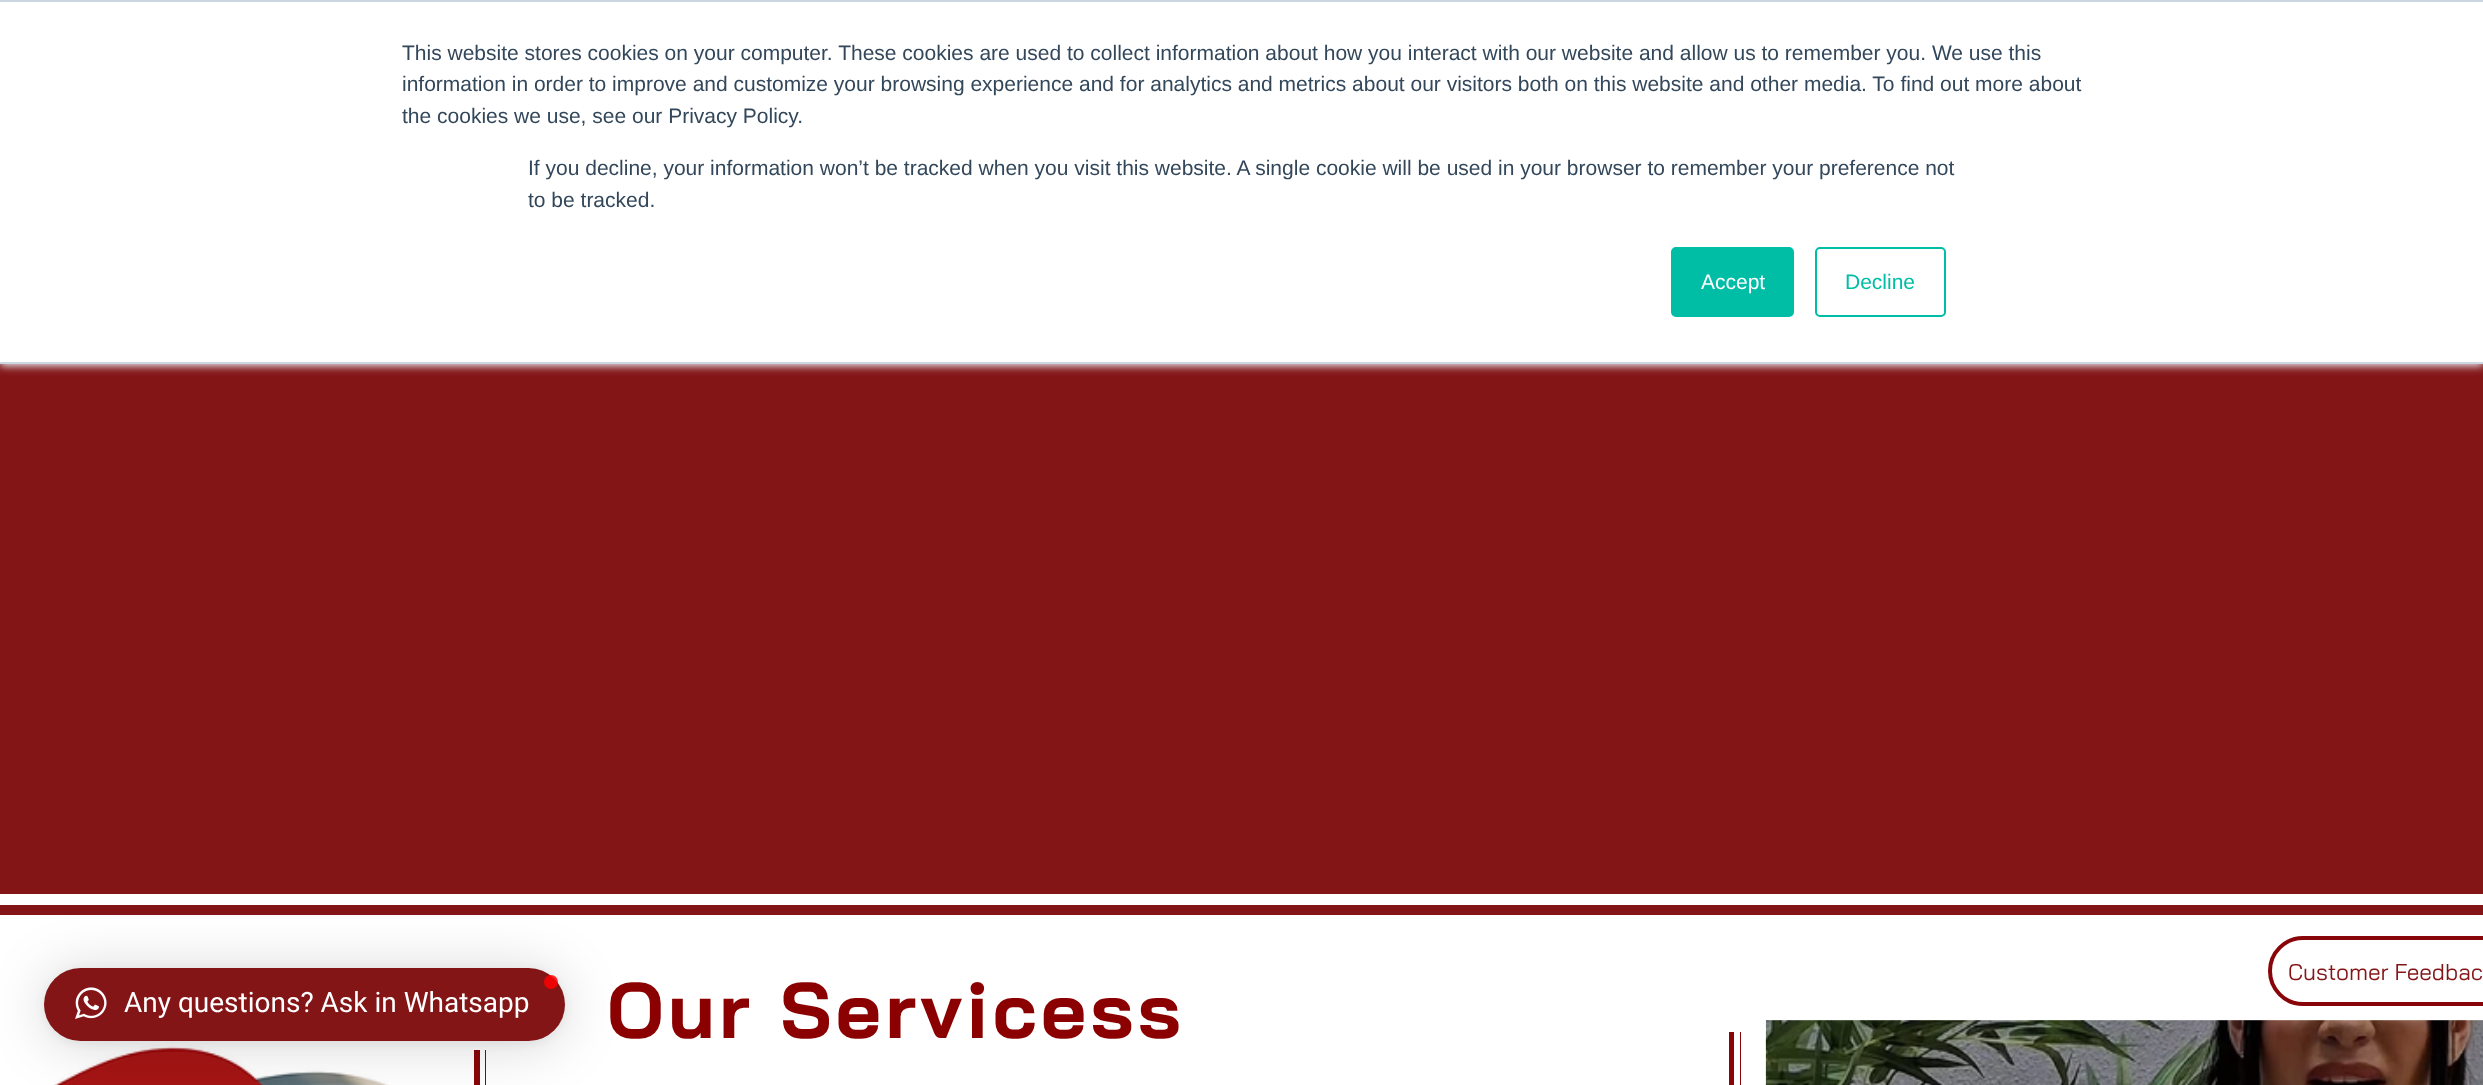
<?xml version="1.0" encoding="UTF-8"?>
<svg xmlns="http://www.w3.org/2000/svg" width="2483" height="1085">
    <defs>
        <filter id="blur1" x="-50%" y="-200%" width="200%" height="500%"><feGaussianBlur stdDeviation="4.5"/></filter>
        <filter id="blur2" x="-50%" y="-200%" width="200%" height="500%"><feGaussianBlur stdDeviation="28"/></filter>
        <filter id="blur3" x="-50%" y="-200%" width="200%" height="500%"><feGaussianBlur stdDeviation="5"/></filter>
    </defs>
    <rect width="100%" height="100%" fill="#831517"/>
    <rect x="0" y="2" width="2483" height="364" fill="#EAF0F6" filter="url(#blur1)"/>
    <rect x="0" y="2" width="2483" height="360" fill="#FFFFFF"/>
    <rect x="0" y="0" width="2483" height="2" fill="#CBD6E2"/>
    <rect x="0" y="362" width="2483" height="2" fill="#CBD6E2"/>
    <text font-family="Liberation Sans" font-size="21" fill="#33475B">
        <tspan x="402" y="60">This website stores cookies on your computer. These cookies are used to collect information about how you interact with our website and allow us to remember you. We use this</tspan>
        <tspan x="402" y="91">information in order to improve and customize your browsing experience and for analytics and metrics about our visitors both on this website and other media. To find out more about</tspan>
        <tspan x="402" y="123">the cookies we use, see our Privacy Policy.</tspan>
    </text>
    <text font-family="Liberation Sans" font-size="21" fill="#33475B">
        <tspan x="528" y="175">If you decline, your information won’t be tracked when you visit this website. A single cookie will be used in your browser to remember your preference not</tspan>
        <tspan x="528" y="207">to be tracked.</tspan>
    </text>
    <rect x="1672" y="248" width="121" height="68" rx="4" fill="#00BDA5" stroke="#00BDA5" stroke-width="2"/>
    <text x="1701" y="289" font-family="Liberation Sans" font-size="21" fill="#FFFFFF">Accept</text>
    <rect x="1816" y="248" width="129" height="68" rx="4" fill="none" stroke="#00BDA5" stroke-width="2"/>
    <text x="1845" y="289" font-family="Liberation Sans" font-size="21" fill="#00BDA5">Decline</text>
    <rect x="0" y="894" width="2483" height="191" fill="#FFFFFF"/>
    <rect x="0" y="905" width="2483" height="10" fill="#831517"/>
    <image x="54" y="1045" width="335" height="40" href="img_02.png"/>
    <rect x="474" y="1050" width="6" height="35" fill="#88050A"/>
    <rect x="485" y="1050" width="1" height="35" fill="#88050A"/>
    <rect x="44" y="971" width="521" height="74" rx="37" fill="#000000" fill-opacity="0.16" filter="url(#blur2)"/>
    <rect x="44" y="970" width="521" height="73" rx="36.5" fill="#000000" fill-opacity="0.06" filter="url(#blur3)"/>
    <rect x="44" y="968" width="521" height="73" rx="36.5" fill="#831517"/>
    <circle cx="551" cy="982" r="7" fill="#FF0000" fill-opacity="0.85"/>
    <image x="75" y="987" width="32" height="32" href="img_01.png"/>
    <text x="124" y="1012" font-family="Roboto" font-size="28" fill="#FFFFFF">Any questions? Ask in Whatsapp</text>
    <rect x="2270" y="938" width="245" height="66" rx="33" fill="none" stroke="#88050A" stroke-width="4"/>
    <text x="2288" y="980" font-family="Bai Jamjuree" font-size="22.75" fill="#831517">Customer Feedbac</text>
    <text x="607" y="1038" font-family="Bai Jamjuree" font-size="78.75" font-weight="700" letter-spacing="4" fill="#8B0000">Our Servicess</text>
    <rect x="1729" y="1032" width="5" height="53" fill="#88050A"/>
    <rect x="1740" y="1032" width="1" height="53" fill="#88050A"/>
    <image x="1765" y="1020" width="718" height="65" href="img_03.png"/>
    <image x="1765" y="1020" width="718" height="65" href="img_04.png"/>
</svg>
